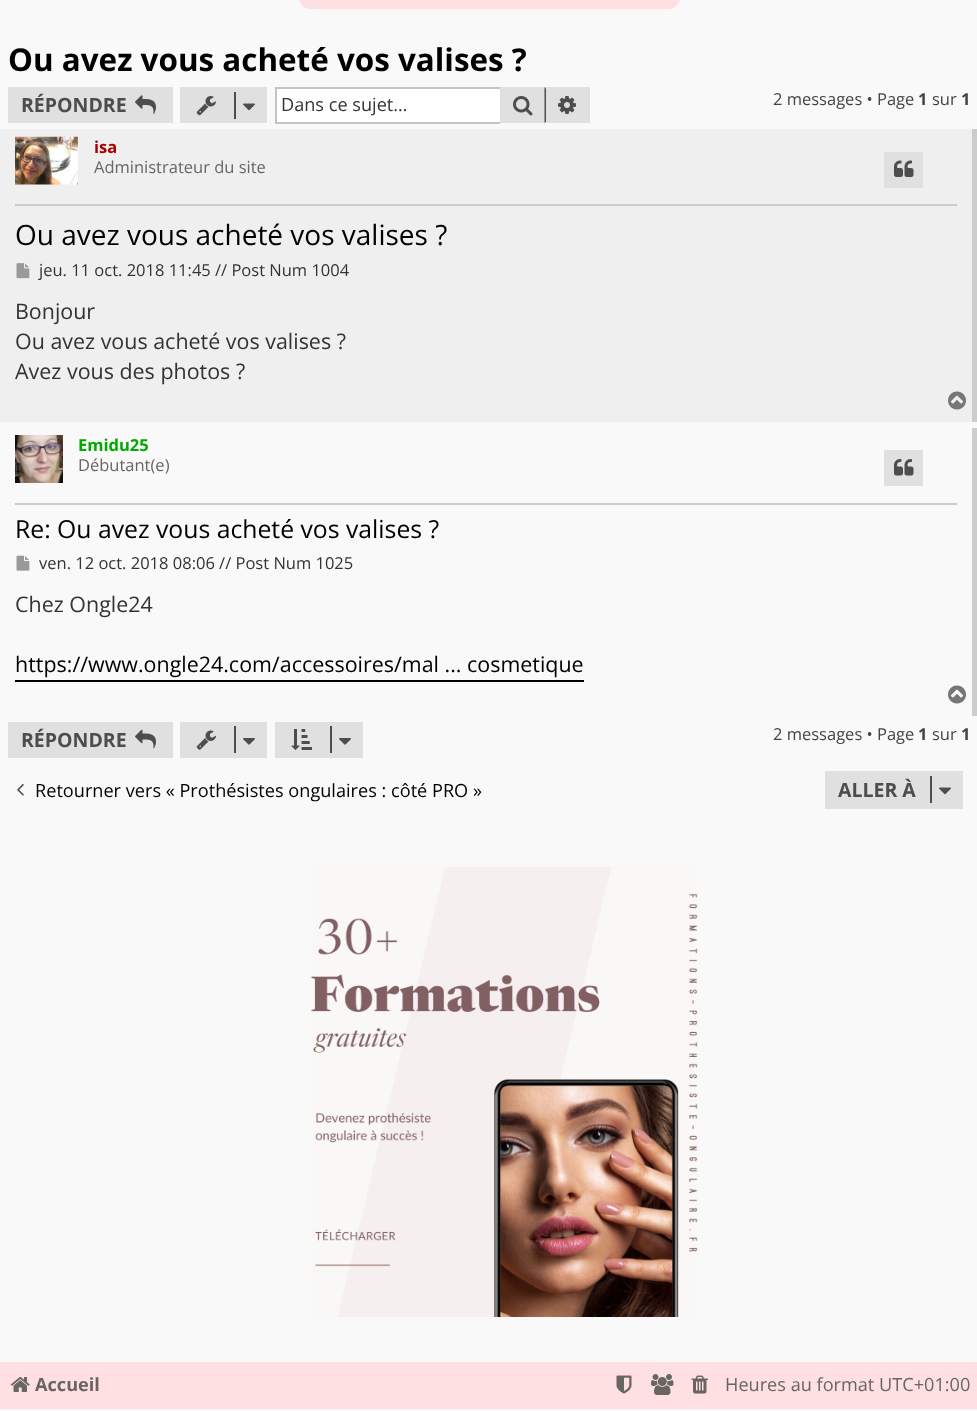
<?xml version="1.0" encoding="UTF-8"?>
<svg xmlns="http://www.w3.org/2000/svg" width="977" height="1411">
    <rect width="100%" height="100%" fill="#F9F9F9"/>
    <rect x="299" y="-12" width="381" height="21" rx="12" fill="#FEE0E2"/>
    <text x="8" y="71" font-family="Open Sans" font-size="31.4" font-weight="700" fill="#000000">Ou avez vous acheté vos valises ?</text>
    <rect x="8" y="87" width="165" height="36" fill="#E0E0E0"/>
    <text x="21" y="112" font-family="Open Sans" font-size="19.5" font-weight="700" fill="#4D4D4D">RÉPONDRE</text>
    <image x="135" y="95" width="21" height="19" href="img_01.png"/>
    <rect x="180" y="87" width="87" height="36" fill="#E0E0E0"/>
    <image x="196" y="96" width="20" height="20" href="img_02.png"/>
    <rect x="234" y="92" width="2" height="27" fill="#4D4D4D"/>
    <image x="243" y="103" width="12" height="8" href="img_03.png"/>
    <rect x="500" y="87" width="90" height="36" fill="#E0E0E0"/>
    <image x="513" y="96" width="20" height="20" href="img_04.png"/>
    <rect x="277" y="89" width="223" height="33" fill="#FFFFFF"/>
    <rect x="275" y="87" width="225" height="2" fill="#C7C3BF"/>
    <rect x="275" y="122" width="225" height="2" fill="#C7C3BF"/>
    <rect x="275" y="87" width="2" height="36" fill="#C7C3BF"/>
    <text x="281" y="111" font-family="Open Sans" font-size="18.15" fill="#333333">Dans ce sujet…</text>
    <path d="M 544.5 123 V 87 L 546 88.5 V 121.5 Z" fill="#4D4D4D"/>
    <image x="558" y="96" width="18" height="18" href="img_05.png"/>
    <text x="773" y="105" font-family="Open Sans" font-size="16.5" fill="#444444">2 messages • Page</text>
    <text x="918" y="105" font-family="Open Sans" font-size="16.5" font-weight="700" fill="#444444">1</text>
    <text x="932" y="105" font-family="Open Sans" font-size="16.5" fill="#444444">sur</text>
    <text x="961" y="105" font-family="Open Sans" font-size="16.5" font-weight="700" fill="#444444">1</text>
    <rect x="0" y="129" width="972" height="293" fill="#EFEFEF"/>
    <rect x="972" y="129" width="5" height="293" fill="#CCCCCC"/>
    <rect x="15" y="204" width="942" height="2" fill="#CCCCCC"/>
    <image x="15" y="136" width="63" height="49" href="img_06.png"/>
    <text x="94" y="153" font-family="Open Sans" font-size="16.5" font-weight="700" fill="#AA0000">isa</text>
    <text x="94" y="173" font-family="Open Sans" font-size="16.5" fill="#696661">Administrateur du site</text>
    <rect x="884" y="152" width="39" height="36" fill="#E0E0E0"/>
    <image x="894" y="160" width="20" height="17" href="img_07.png"/>
    <text x="15" y="245" font-family="Open Sans" font-size="28" fill="#000000">Ou avez vous acheté vos valises ?</text>
    <image x="16" y="263" width="14" height="16" href="img_08.png"/>
    <text x="39" y="276" font-family="Open Sans" font-size="16.5" fill="#333333">jeu. 11 oct. 2018 11:45 // Post Num 1004</text>
    <text font-family="Open Sans" font-size="21.45" fill="#333333">
        <tspan x="15" y="319">Bonjour</tspan>
        <tspan x="15" y="349">Ou avez vous acheté vos valises ?</tspan>
        <tspan x="15" y="379">Avez vous des photos ?</tspan>
    </text>
    <image x="948" y="391" width="18" height="19" href="img_09.png"/>
    <rect x="972" y="428" width="5" height="288" fill="#CCCCCC"/>
    <rect x="15" y="503" width="942" height="2" fill="#CCCCCC"/>
    <image x="15" y="435" width="48" height="48" href="img_10.png"/>
    <text x="78" y="451" font-family="Open Sans" font-size="16.5" font-weight="700" fill="#00AA00">Emidu25</text>
    <text x="78" y="471" font-family="Open Sans" font-size="16.5" fill="#696661">Débutant(e)</text>
    <rect x="884" y="450" width="39" height="36" fill="#E0E0E0"/>
    <image x="894" y="459" width="20" height="17" href="img_11.png"/>
    <text x="15" y="538" font-family="Open Sans" font-size="24.75" fill="#000000">Re: Ou avez vous acheté vos valises ?</text>
    <image x="16" y="555" width="14" height="16" href="img_12.png"/>
    <text x="39" y="569" font-family="Open Sans" font-size="16.5" fill="#333333">ven. 12 oct. 2018 08:06 // Post Num 1025</text>
    <text x="15" y="612" font-family="Open Sans" font-size="21.45" fill="#333333">Chez Ongle24</text>
    <rect x="15" y="680" width="569" height="2" fill="#000000"/>
    <text x="15" y="672" font-family="Open Sans" font-size="21.45" fill="#000000">https://www.ongle24.com/accessoires/mal ... cosmetique</text>
    <image x="948" y="685" width="18" height="19" href="img_13.png"/>
    <rect x="8" y="722" width="165" height="36" fill="#E0E0E0"/>
    <text x="21" y="747" font-family="Open Sans" font-size="19.5" font-weight="700" fill="#4D4D4D">RÉPONDRE</text>
    <image x="135" y="729" width="21" height="20" href="img_14.png"/>
    <rect x="180" y="722" width="87" height="36" fill="#E0E0E0"/>
    <image x="196" y="730" width="20" height="20" href="img_15.png"/>
    <rect x="234" y="726" width="2" height="27" fill="#4D4D4D"/>
    <image x="243" y="738" width="12" height="7" href="img_16.png"/>
    <rect x="275" y="722" width="88" height="36" fill="#E0E0E0"/>
    <image x="291" y="729" width="21" height="21" href="img_17.png"/>
    <rect x="330" y="726" width="2" height="27" fill="#4D4D4D"/>
    <image x="339" y="738" width="12" height="7" href="img_16.png"/>
    <text x="773" y="740" font-family="Open Sans" font-size="16.5" fill="#444444">2 messages • Page</text>
    <text x="918" y="740" font-family="Open Sans" font-size="16.5" font-weight="700" fill="#444444">1</text>
    <text x="932" y="740" font-family="Open Sans" font-size="16.5" fill="#444444">sur</text>
    <text x="961" y="740" font-family="Open Sans" font-size="16.5" font-weight="700" fill="#444444">1</text>
    <image x="17" y="784" width="7" height="12" href="img_18.png"/>
    <text x="35" y="797" font-family="Open Sans" font-size="18.15" fill="#000000">Retourner vers « Prothésistes ongulaires : côté PRO »</text>
    <rect x="825" y="771" width="138" height="38" fill="#E0E0E0"/>
    <text x="838" y="797" font-family="Open Sans" font-size="19.5" font-weight="700" fill="#4D4D4D">ALLER À</text>
    <rect x="930" y="776" width="2" height="27" fill="#4D4D4D"/>
    <image x="939" y="787" width="12" height="8" href="img_03.png"/>
    <image x="310" y="867" width="388" height="450" href="img_19.png"/>
    <rect x="0" y="1362" width="977" height="47" fill="#FEE0E2"/>
    <image x="10" y="1377" width="20" height="15" href="img_20.png"/>
    <text x="35" y="1391" font-family="Open Sans" font-size="18.15" font-weight="700" fill="#696661">Accueil</text>
    <image x="616" y="1375" width="16" height="19" href="img_21.png"/>
    <image x="651" y="1374" width="23" height="21" href="img_22.png"/>
    <image x="691" y="1375" width="17" height="19" href="img_23.png"/>
    <text x="725" y="1391" font-family="Open Sans" font-size="18.15" fill="#696661">Heures au format UTC+01:00</text>
</svg>
